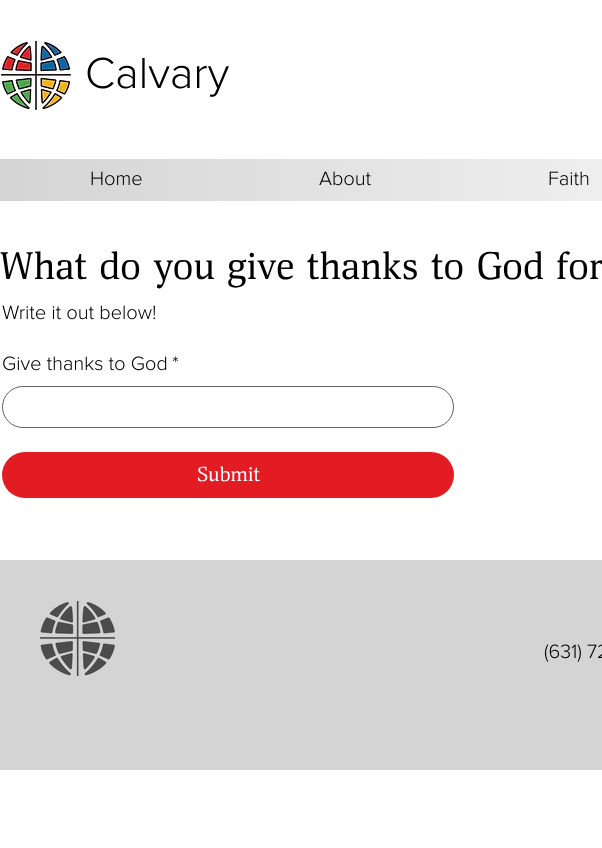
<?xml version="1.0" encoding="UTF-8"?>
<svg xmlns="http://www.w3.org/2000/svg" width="602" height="848">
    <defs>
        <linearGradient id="g1" gradientUnits="userSpaceOnUse" x1="0" y1="180" x2="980" y2="180"><stop offset="0" stop-color="#D4D4D4"/><stop offset="1" stop-color="#FFFFFF"/></linearGradient>
    </defs>
    <rect width="100%" height="100%" fill="#FFFFFF"/>
    <image x="0" y="40" width="72" height="71" href="img_01.png"/>
    <image x="87" y="57" width="142" height="40" href="img_02.png"/>
    <rect x="0" y="159" width="602" height="42" fill="url(#g1)"/>
    <image x="91" y="171" width="51" height="15" href="img_03.png"/>
    <image x="319" y="171" width="52" height="15" href="img_04.png"/>
    <image x="549" y="171" width="40" height="15" href="img_05.png"/>
    <text x="0" y="279" font-family="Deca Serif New" font-size="38" fill="#000000">What do you give thanks to God for</text>
    <image x="2" y="305" width="154" height="15" href="img_06.png"/>
    <image x="3" y="356" width="164" height="15" href="img_07.png"/>
    <image x="172" y="356" width="6" height="6" href="img_08.png"/>
    <rect x="2.5" y="386.5" width="451" height="41" rx="20.5" fill="none" stroke="#666666"/>
    <rect x="2" y="452" width="452" height="46" rx="23" fill="#E31B23"/>
    <text x="197" y="481" font-family="Deca Serif New" font-size="20" fill="#FFFFFF">Submit</text>
    <rect x="0" y="560" width="602" height="210" fill="#D4D4D4"/>
    <image x="40" y="601" width="75" height="75" href="img_09.png"/>
    <image x="544" y="644" width="58" height="18" href="img_10.png"/>
</svg>
